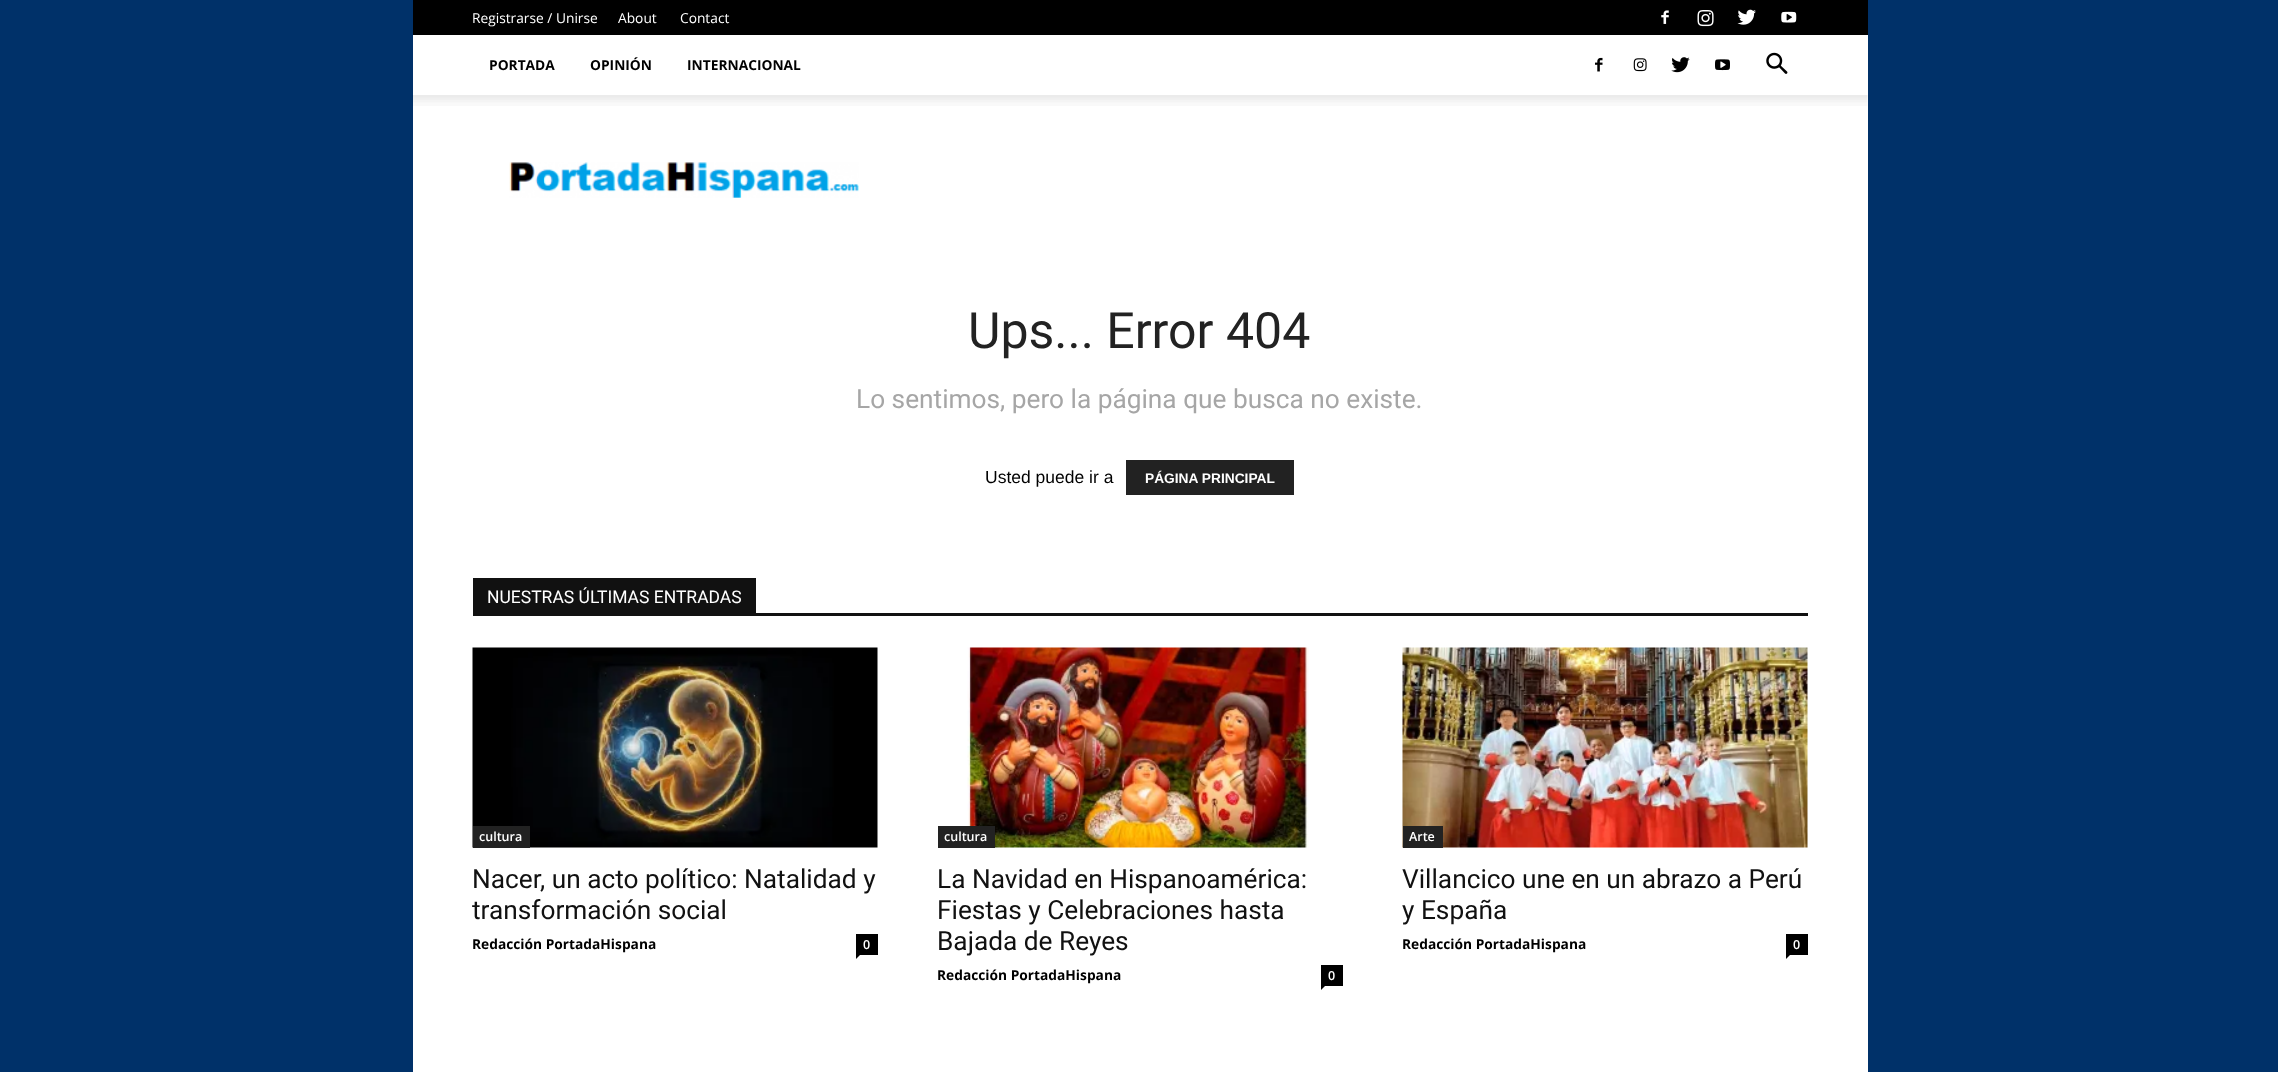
<?xml version="1.0" encoding="UTF-8"?>
<svg xmlns="http://www.w3.org/2000/svg" width="2278" height="1072">
    <rect width="100%" height="100%" fill="#003169"/>
    <rect x="413" y="0" width="1455" height="35" fill="#000000"/>
    <text x="472" y="23" font-family="Open Sans" font-size="13.75" fill="#FFFFFF">Registrarse / Unirse</text>
    <text x="618" y="23" font-family="Open Sans" font-size="13.75" fill="#FFFFFF">About</text>
    <text x="680" y="23" font-family="Open Sans" font-size="13.75" fill="#FFFFFF">Contact</text>
    <image x="1661" y="10" width="8" height="14" href="img_01.png"/>
    <image x="1697" y="10" width="17" height="17" href="img_02.png"/>
    <image x="1737" y="9" width="19" height="16" href="img_03.png"/>
    <image x="1781" y="11" width="16" height="12" href="img_04.png"/>
    <rect x="413" y="35" width="1455" height="1037" fill="#FFFFFF"/>
    <text x="489" y="70" font-family="Open Sans" font-size="13.75" font-weight="700" fill="#000000">PORTADA</text>
    <text x="590" y="70" font-family="Open Sans" font-size="13.75" font-weight="700" fill="#000000">OPINIÓN</text>
    <text x="687" y="70" font-family="Open Sans" font-size="13.75" font-weight="700" fill="#000000">INTERNACIONAL</text>
    <image x="1595" y="57" width="8" height="15" href="img_05.png"/>
    <image x="1633" y="58" width="14" height="14" href="img_06.png"/>
    <image x="1671" y="57" width="19" height="16" href="img_07.png"/>
    <image x="1715" y="59" width="15" height="12" href="img_08.png"/>
    <image x="1766" y="52" width="22" height="22" href="img_09.png"/>
    <image x="412" y="95" width="1456" height="11" href="img_10.png"/>
    <image x="509" y="162" width="350" height="36" href="img_11.png"/>
    <text x="968" y="348" font-family="Roboto" font-size="50" fill="#222222">Ups... Error 404</text>
    <text x="856" y="408" font-family="Roboto" font-size="26.25" fill="#A6A6A6">Lo sentimos, pero la página que busca no existe.</text>
    <text x="985" y="483" font-family="Liberation Sans" font-size="17.5" fill="#000000">Usted puede ir a</text>
    <rect x="1126" y="460" width="168" height="35" fill="#222222"/>
    <text x="1145" y="483" font-family="Liberation Sans" font-size="13.75" font-weight="700" fill="#FFFFFF">PÁGINA PRINCIPAL</text>
    <rect x="473" y="613" width="1335" height="3" fill="#111111"/>
    <rect x="473" y="578" width="283" height="35" fill="#111111"/>
    <text x="487" y="603" font-family="Roboto" font-size="17.5" fill="#FFFFFF">NUESTRAS ÚLTIMAS ENTRADAS</text>
    <image x="472" y="647" width="406" height="201" href="img_12.png"/>
    <rect x="473" y="826" width="57" height="22" fill="#222222"/>
    <text x="479" y="841" font-family="Open Sans" font-size="12.5" font-weight="600" fill="#FFFFFF">cultura</text>
    <text font-family="Roboto" font-size="26.25" fill="#111111">
        <tspan x="472" y="888">Nacer, un acto político: Natalidad y</tspan>
        <tspan x="472" y="919">transformación social</tspan>
    </text>
    <text x="472" y="949" font-family="Open Sans" font-size="13.75" font-weight="700" fill="#000000">Redacción PortadaHispana</text>
    <rect x="856" y="934" width="22" height="21" fill="#000000"/>
    <text x="863" y="949" font-family="Open Sans" font-size="12.5" font-weight="600" fill="#FFFFFF">0</text>
    <path d="M 856 955 H 860 L 856 959 Z" fill="#000000"/>
    <image x="967" y="647" width="342" height="201" href="img_13.png"/>
    <rect x="938" y="826" width="57" height="22" fill="#222222"/>
    <text x="944" y="841" font-family="Open Sans" font-size="12.5" font-weight="600" fill="#FFFFFF">cultura</text>
    <text font-family="Roboto" font-size="26.25" fill="#111111">
        <tspan x="937" y="888">La Navidad en Hispanoamérica:</tspan>
        <tspan x="937" y="919">Fiestas y Celebraciones hasta</tspan>
        <tspan x="937" y="950">Bajada de Reyes</tspan>
    </text>
    <text x="937" y="980" font-family="Open Sans" font-size="13.75" font-weight="700" fill="#000000">Redacción PortadaHispana</text>
    <rect x="1321" y="965" width="22" height="21" fill="#000000"/>
    <text x="1328" y="980" font-family="Open Sans" font-size="12.5" font-weight="600" fill="#FFFFFF">0</text>
    <path d="M 1321 986 H 1325 L 1321 990 Z" fill="#000000"/>
    <image x="1402" y="647" width="406" height="201" href="img_14.png"/>
    <rect x="1403" y="826" width="40" height="22" fill="#222222"/>
    <text x="1409" y="841" font-family="Open Sans" font-size="12.5" font-weight="600" fill="#FFFFFF">Arte</text>
    <text font-family="Roboto" font-size="26.25" fill="#111111">
        <tspan x="1402" y="888">Villancico une en un abrazo a Perú</tspan>
        <tspan x="1402" y="919">y España</tspan>
    </text>
    <text x="1402" y="949" font-family="Open Sans" font-size="13.75" font-weight="700" fill="#000000">Redacción PortadaHispana</text>
    <rect x="1786" y="934" width="22" height="21" fill="#000000"/>
    <text x="1793" y="949" font-family="Open Sans" font-size="12.5" font-weight="600" fill="#FFFFFF">0</text>
    <path d="M 1786 955 H 1790 L 1786 959 Z" fill="#000000"/>
</svg>
